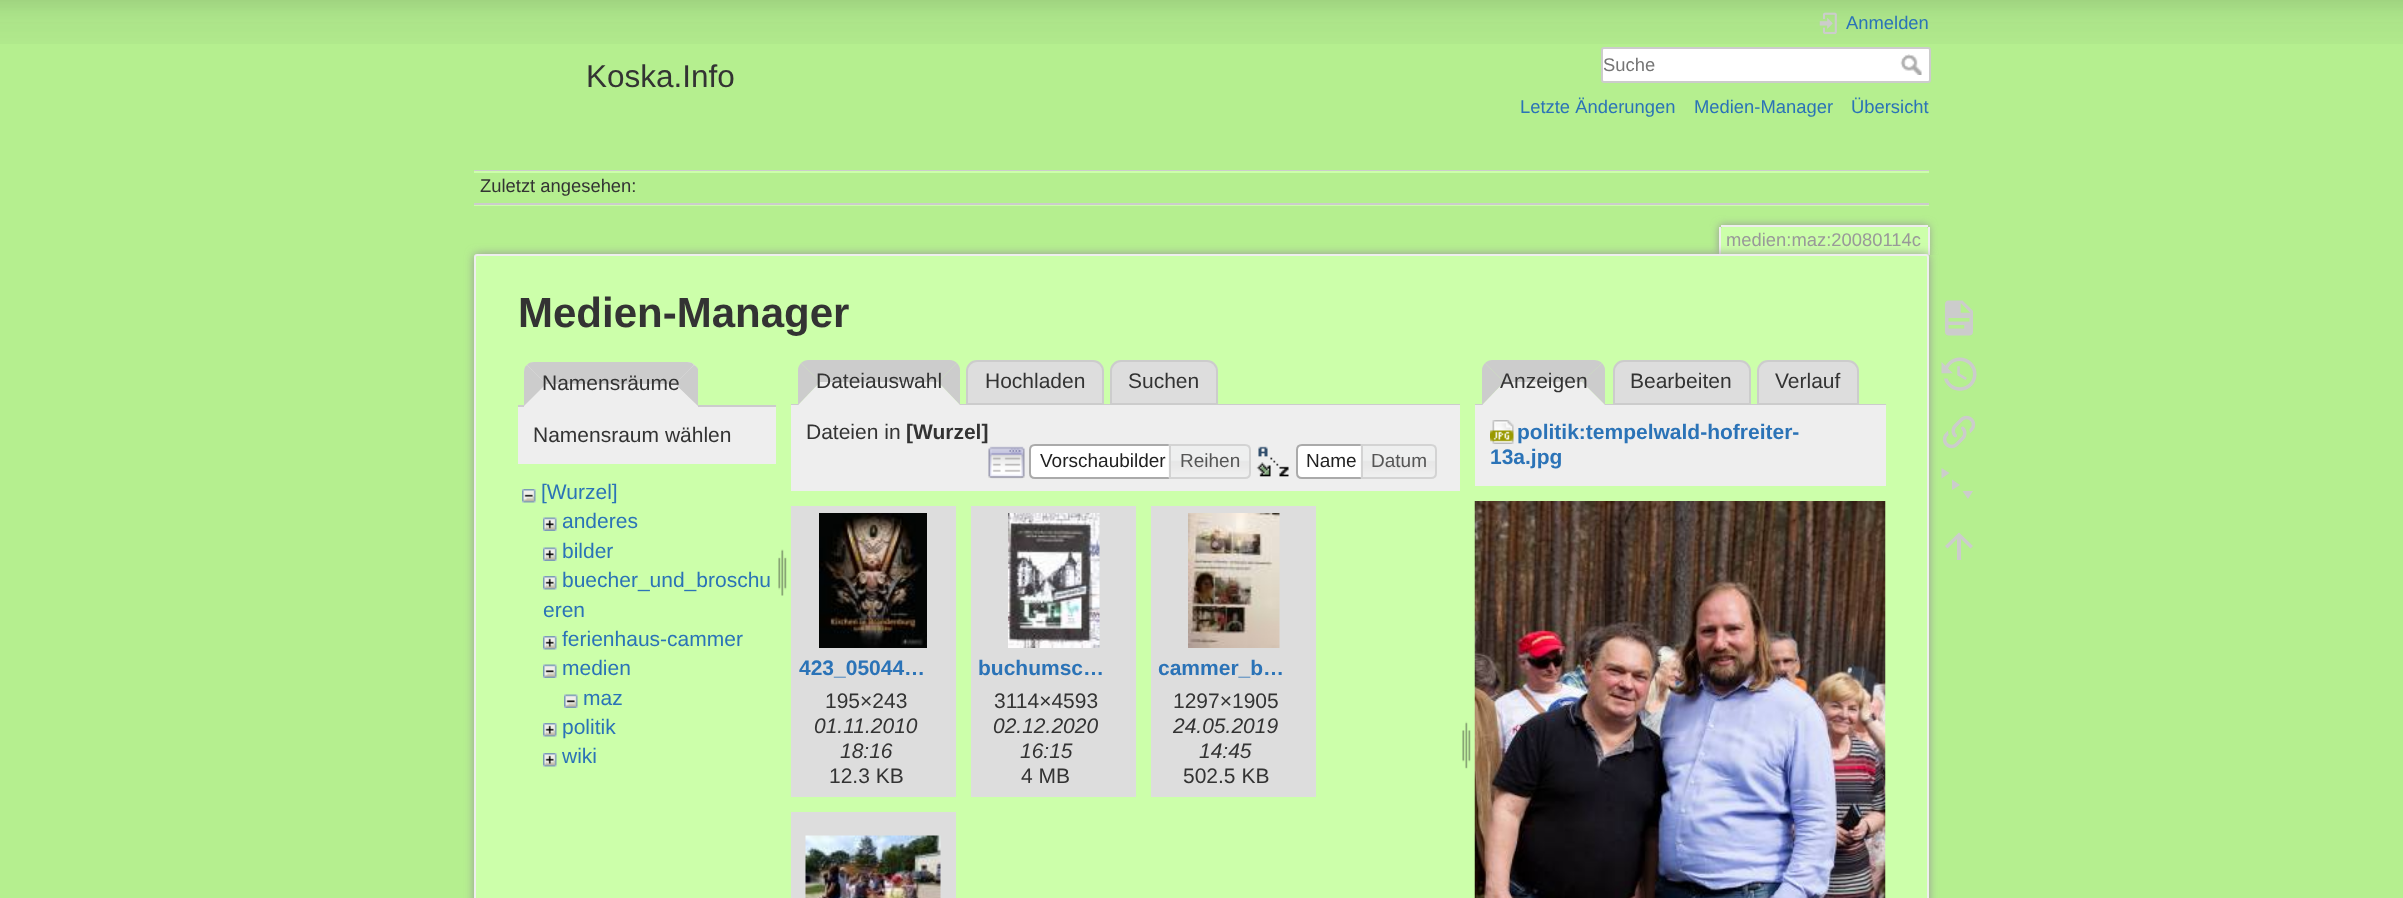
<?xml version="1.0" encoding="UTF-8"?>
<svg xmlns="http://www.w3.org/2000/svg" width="2403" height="898">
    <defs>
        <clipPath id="clip1"><rect x="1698" y="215" width="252" height="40"/></clipPath>
        <filter id="blur1" x="-50%" y="-200%" width="200%" height="500%"><feGaussianBlur stdDeviation="4.5"/></filter>
        <filter id="blur2" x="-50%" y="-200%" width="200%" height="500%"><feGaussianBlur stdDeviation="5"/></filter>
    </defs>
    <rect width="100%" height="100%" fill="#B5EF8F"/>
    <image x="0" y="0" width="2403" height="44" href="img_01.png"/>
    <text x="586" y="87" font-family="Liberation Sans" font-size="31.5" fill="#333333">Koska.Info</text>
    <image x="1819" y="12" width="18" height="23" href="img_02.png"/>
    <text x="1846" y="29" font-family="Liberation Sans" font-size="18.4" fill="#2B73B7">Anmelden</text>
    <rect x="1602" y="48" width="328" height="34" rx="2" fill="#FFFFFF" stroke="#CCCCCC" stroke-width="2"/>
    <text x="1603" y="71" font-family="Liberation Sans" font-size="18.4" fill="#757575">Suche</text>
    <image x="1900" y="54" width="22" height="21" href="img_03.png"/>
    <text x="1520" y="113" font-family="Liberation Sans" font-size="18.4" fill="#2B73B7">Letzte Änderungen</text>
    <text x="1694" y="113" font-family="Liberation Sans" font-size="18.4" fill="#2B73B7">Medien-Manager</text>
    <text x="1851" y="113" font-family="Liberation Sans" font-size="18.4" fill="#2B73B7">Übersicht</text>
    <rect x="474" y="170" width="1455" height="1" fill="#CCCCCC"/>
    <rect x="474" y="205" width="1455" height="1" fill="#CCFFAA"/>
    <rect x="474" y="171" width="1455" height="2" fill="#CCFFAA"/>
    <rect x="474" y="203" width="1455" height="2" fill="#CCCCCC"/>
    <text x="480" y="192" font-family="Liberation Sans" font-size="18.4" fill="#333333">Zuletzt angesehen:</text>
    <g clip-path="url(#clip1)">
        <rect x="1719" y="225" width="210" height="30" rx="3" fill="#999999" filter="url(#blur1)"/>
    </g>
    <path d="M 1722.5 227 H 1926.5 C 1927.5 227 1928 227.5 1928 228.5 V 255 H 1721 V 228.5 C 1721 227.5 1721.5 227 1722.5 227 Z" fill="#CCFFAA"/>
    <rect x="1721" y="225" width="207" height="2" fill="#EEEEEE"/>
    <rect x="1928" y="227" width="2" height="28" fill="#EEEEEE"/>
    <rect x="1719" y="227" width="2" height="28" fill="#EEEEEE"/>
    <text x="1726" y="246" font-family="Liberation Sans" font-size="18.4" fill="#999999">medien:maz:20080114c</text>
    <rect x="474" y="254" width="1455" height="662" rx="3" fill="#999999" filter="url(#blur2)"/>
    <rect x="475" y="255" width="1453" height="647" rx="2" fill="#CCFFAA" stroke="#EEEEEE" stroke-width="2"/>
    <text x="518" y="327" font-family="Liberation Sans" font-size="42" font-weight="700" fill="#333333">Medien-Manager</text>
    <rect x="518" y="405" width="258" height="2" fill="#CCCCCC"/>
    <path d="M 535 362 H 687 C 693 362 698 367 698 373 V 407 H 524 V 373 C 524 367 529 362 535 362 Z" fill="#EEEEEE"/>
    <path d="M 534 362 C 531 362 528 363 527 365 L 546 384 H 675 L 694 365 C 693 363 690 362 687 362 Z" fill="#CCCCCC"/>
    <path d="M 698 406 L 675 384 L 694 365 C 696 366 697 367 698 369 Z" fill="#CCCCCC"/>
    <path d="M 697 406 L 675 384 H 546 L 524 406 Z" fill="#EEEEEE"/>
    <path d="M 527 365 C 525 366 524 369 524 372 V 406 L 546 384 Z" fill="#CCCCCC"/>
    <text x="542" y="390" font-family="Liberation Sans" font-size="21" fill="#333333">Namensräume</text>
    <rect x="518" y="407" width="258" height="57" fill="#EEEEEE"/>
    <text x="533" y="442" font-family="Liberation Sans" font-size="21" fill="#333333">Namensraum wählen</text>
    <image x="522" y="489" width="14" height="14" href="img_04.png"/>
    <text x="541" y="499" font-family="Liberation Sans" font-size="21" fill="#2B73B7">[Wurzel]</text>
    <image x="543" y="517" width="14" height="14" href="img_05.png"/>
    <text x="562" y="528" font-family="Liberation Sans" font-size="21" fill="#2B73B7">anderes</text>
    <image x="543" y="547" width="14" height="14" href="img_05.png"/>
    <text x="562" y="558" font-family="Liberation Sans" font-size="21" fill="#2B73B7">bilder</text>
    <image x="543" y="576" width="14" height="14" href="img_06.png"/>
    <text x="562" y="587" font-family="Liberation Sans" font-size="21" fill="#2B73B7">buecher_und_broschu</text>
    <text x="543" y="617" font-family="Liberation Sans" font-size="21" fill="#2B73B7">eren</text>
    <image x="543" y="636" width="14" height="14" href="img_06.png"/>
    <text x="562" y="646" font-family="Liberation Sans" font-size="21" fill="#2B73B7">ferienhaus-cammer</text>
    <image x="543" y="664" width="14" height="14" href="img_07.png"/>
    <text x="562" y="675" font-family="Liberation Sans" font-size="21" fill="#2B73B7">medien</text>
    <image x="564" y="694" width="14" height="14" href="img_08.png"/>
    <text x="583" y="705" font-family="Liberation Sans" font-size="21" fill="#2B73B7">maz</text>
    <image x="543" y="723" width="14" height="14" href="img_06.png"/>
    <text x="562" y="734" font-family="Liberation Sans" font-size="21" fill="#2B73B7">politik</text>
    <image x="543" y="753" width="14" height="14" href="img_06.png"/>
    <text x="562" y="763" font-family="Liberation Sans" font-size="21" fill="#2B73B7">wiki</text>
    <image x="778" y="549" width="9" height="47" href="img_09.png"/>
    <path d="M 808 360 H 950 C 952 360 955 361 957 363 L 938 382 H 820 L 801 363 C 803 361 806 360 808 360 Z" fill="#CCCCCC"/>
    <path d="M 977 361 H 1093 C 1098.5 361 1103 365.5 1103 371 V 404 H 967 V 371 C 967 365.5 971.5 361 977 361 Z" fill="#DDDDDD" stroke="#CCCCCC" stroke-width="2"/>
    <path d="M 1121 361 H 1207 C 1212.5 361 1217 365.5 1217 371 V 404 H 1111 V 371 C 1111 365.5 1115.5 361 1121 361 Z" fill="#DDDDDD" stroke="#CCCCCC" stroke-width="2"/>
    <rect x="791" y="404" width="669" height="1" fill="#CCCCCC"/>
    <path d="M 957 363 L 938 382 L 960 405 V 370 C 960 368 959 365 957 363 Z" fill="#CCCCCC"/>
    <path d="M 960 405 L 938 382 H 820 L 798 405 Z" fill="#EEEEEE"/>
    <path d="M 798 405 V 370 C 798 368 799 365 801 363 L 820 382 Z" fill="#CCCCCC"/>
    <text x="816" y="388" font-family="Liberation Sans" font-size="21" fill="#333333">Dateiauswahl</text>
    <text x="985" y="388" font-family="Liberation Sans" font-size="21" fill="#333333">Hochladen</text>
    <text x="1128" y="388" font-family="Liberation Sans" font-size="21" fill="#333333">Suchen</text>
    <rect x="791" y="405" width="669" height="86" fill="#EEEEEE"/>
    <text x="806" y="439" font-family="Liberation Sans" font-size="21" fill="#333333">Dateien in</text>
    <text x="906" y="439" font-family="Liberation Sans" font-size="21" font-weight="700" fill="#333333">[Wurzel]</text>
    <image x="988" y="446" width="37" height="33" href="img_10.png"/>
    <path d="M 1035 445 H 1175 V 478 H 1035 C 1032 478 1030 476 1030 473 V 450 C 1030 447 1032 445 1035 445 Z" fill="#FFFFFF" stroke="#AAAAAA" stroke-width="2"/>
    <text x="1040" y="467" font-family="Liberation Sans" font-size="19" fill="#212121">Vorschaubilder</text>
    <image x="1168" y="444" width="83" height="35" href="img_11.png"/>
    <path d="M 1170 445 H 1245 C 1248 445 1250 447 1250 450 V 473 C 1250 476 1248 478 1245 478 H 1170 Z" fill="none" stroke="#D3D3D3" stroke-width="2"/>
    <text x="1180" y="467" font-family="Liberation Sans" font-size="19" fill="#555555">Reihen</text>
    <image x="1256" y="446" width="33" height="31" href="img_12.png"/>
    <path d="M 1302 445 H 1367 V 478 H 1302 C 1299 478 1297 476 1297 473 V 450 C 1297 447 1299 445 1302 445 Z" fill="#FFFFFF" stroke="#AAAAAA" stroke-width="2"/>
    <text x="1306" y="467" font-family="Liberation Sans" font-size="19" fill="#212121">Name</text>
    <image x="1360" y="444" width="77" height="35" href="img_13.png"/>
    <path d="M 1362 445 H 1431 C 1434 445 1436 447 1436 450 V 473 C 1436 476 1434 478 1431 478 H 1362 Z" fill="none" stroke="#D3D3D3" stroke-width="2"/>
    <text x="1371" y="467" font-family="Liberation Sans" font-size="19" fill="#555555">Datum</text>
    <rect x="791" y="506" width="165" height="291" fill="#DDDDDD"/>
    <image x="819" y="513" width="108" height="135" href="img_14.png"/>
    <text x="799" y="675" font-family="Liberation Sans" font-size="21" font-weight="700" fill="#2B73B7">423_05044…</text>
    <text x="825" y="708" font-family="Liberation Sans" font-size="21" fill="#333333">195×243</text>
    <text x="814" y="733" font-family="Liberation Sans" font-size="21" font-style="italic" fill="#333333">01.11.2010</text>
    <text x="840" y="758" font-family="Liberation Sans" font-size="21" font-style="italic" fill="#333333">18:16</text>
    <text x="829" y="783" font-family="Liberation Sans" font-size="21" fill="#333333">12.3 KB</text>
    <rect x="971" y="506" width="165" height="291" fill="#DDDDDD"/>
    <image x="1008" y="513" width="92" height="135" href="img_15.png"/>
    <text x="978" y="675" font-family="Liberation Sans" font-size="21" font-weight="700" fill="#2B73B7">buchumsc…</text>
    <text x="994" y="708" font-family="Liberation Sans" font-size="21" fill="#333333">3114×4593</text>
    <text x="993" y="733" font-family="Liberation Sans" font-size="21" font-style="italic" fill="#333333">02.12.2020</text>
    <text x="1020" y="758" font-family="Liberation Sans" font-size="21" font-style="italic" fill="#333333">16:15</text>
    <text x="1021" y="783" font-family="Liberation Sans" font-size="21" fill="#333333">4 MB</text>
    <rect x="1151" y="506" width="165" height="291" fill="#DDDDDD"/>
    <image x="1188" y="513" width="92" height="135" href="img_16.png"/>
    <text x="1158" y="675" font-family="Liberation Sans" font-size="21" font-weight="700" fill="#2B73B7">cammer_b…</text>
    <text x="1173" y="708" font-family="Liberation Sans" font-size="21" fill="#333333">1297×1905</text>
    <text x="1173" y="733" font-family="Liberation Sans" font-size="21" font-style="italic" fill="#333333">24.05.2019</text>
    <text x="1199" y="758" font-family="Liberation Sans" font-size="21" font-style="italic" fill="#333333">14:45</text>
    <text x="1183" y="783" font-family="Liberation Sans" font-size="21" fill="#333333">502.5 KB</text>
    <rect x="791" y="812" width="165" height="86" fill="#DDDDDD"/>
    <image x="805" y="835" width="136" height="63" href="img_17.png"/>
    <image x="1462" y="721" width="9" height="48" href="img_18.png"/>
    <path d="M 1492 360 H 1594 C 1597 360 1600 361 1602 363 L 1582 382 H 1504 L 1485 363 C 1487 361 1490 360 1492 360 Z" fill="#CCCCCC"/>
    <path d="M 1624 361 H 1740 C 1745.5 361 1750 365.5 1750 371 V 404 H 1614 V 371 C 1614 365.5 1618.5 361 1624 361 Z" fill="#DDDDDD" stroke="#CCCCCC" stroke-width="2"/>
    <path d="M 1768 361 H 1848 C 1853.5 361 1858 365.5 1858 371 V 404 H 1758 V 371 C 1758 365.5 1762.5 361 1768 361 Z" fill="#DDDDDD" stroke="#CCCCCC" stroke-width="2"/>
    <rect x="1475" y="404" width="411" height="1" fill="#CCCCCC"/>
    <path d="M 1602 363 L 1582 382 L 1605 405 V 370 C 1605 368 1604 365 1602 363 Z" fill="#CCCCCC"/>
    <path d="M 1605 405 L 1582 382 H 1504 L 1482 405 Z" fill="#EEEEEE"/>
    <path d="M 1482 405 V 370 C 1482 368 1483 365 1485 363 L 1504 382 Z" fill="#CCCCCC"/>
    <text x="1500" y="388" font-family="Liberation Sans" font-size="21" fill="#333333">Anzeigen</text>
    <text x="1630" y="388" font-family="Liberation Sans" font-size="21" fill="#333333">Bearbeiten</text>
    <text x="1775" y="388" font-family="Liberation Sans" font-size="21" fill="#333333">Verlauf</text>
    <rect x="1475" y="405" width="411" height="81" fill="#EEEEEE"/>
    <image x="1490" y="420" width="24" height="24" href="img_19.png"/>
    <text x="1517" y="439" font-family="Liberation Sans" font-size="21" font-weight="700" fill="#2B73B7">politik:tempelwald-hofreiter-</text>
    <text x="1490" y="464" font-family="Liberation Sans" font-size="21" font-weight="700" fill="#2B73B7">13a.jpg</text>
    <image x="1474" y="501" width="412" height="397" href="img_20.png"/>
    <image x="1945" y="300" width="28" height="36" href="img_21.png"/>
    <image x="1941" y="357" width="36" height="34" href="img_22.png"/>
    <image x="1942" y="415" width="34" height="34" href="img_23.png"/>
    <path d="M 1941.5 468 L 1949.5 473 L 1941.5 478.5 Z M 1952 479.5 L 1960 485 L 1952 490 Z M 1962.5 491 H 1973 L 1968 499 Z" fill="#CCCCCC"/>
    <path d="M 1961 560 H 1957 V 539 L 1947.5 548.5 L 1945 546 L 1959 532.5 L 1973 546 L 1970.5 548.5 L 1961 539 Z" fill="#CCCCCC"/>
</svg>
